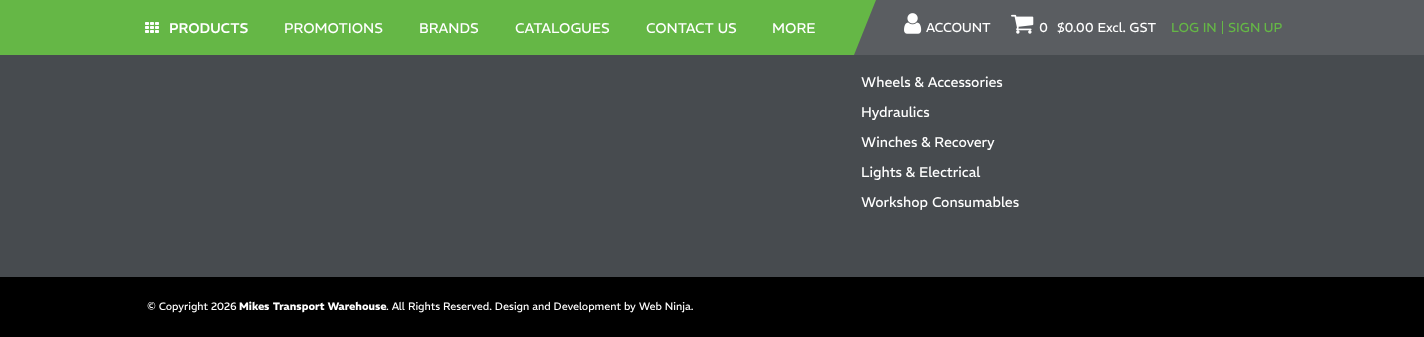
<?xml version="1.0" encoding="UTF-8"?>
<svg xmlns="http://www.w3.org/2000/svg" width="1424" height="337">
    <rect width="100%" height="100%" fill="#474B4F"/>
    <rect x="0" y="0" width="876" height="55" fill="#65B746"/>
    <rect x="1297" y="0" width="127" height="55" fill="#5A5D61"/>
    <image x="145" y="22" width="14" height="11" href="img_01.png"/>
    <text x="169" y="33" font-family="REM" font-size="14" font-weight="500" fill="#FFFFFF">PRODUCTS</text>
    <text x="284" y="33" font-family="REM" font-size="14" fill="#FFFFFF">PROMOTIONS</text>
    <text x="419" y="33" font-family="REM" font-size="14" fill="#FFFFFF">BRANDS</text>
    <text x="515" y="33" font-family="REM" font-size="14" fill="#FFFFFF">CATALOGUES</text>
    <text x="646" y="33" font-family="REM" font-size="14" fill="#FFFFFF">CONTACT US</text>
    <text x="772" y="33" font-family="REM" font-size="14" fill="#FFFFFF">MORE</text>
    <path d="M 876 0 L 854 55 H 1297 V 0 Z" fill="#5A5D61"/>
    <image x="904" y="13" width="18" height="21" href="img_02.png"/>
    <text x="926" y="32" font-family="REM" font-size="13" fill="#FFFFFF">ACCOUNT</text>
    <image x="1011" y="14" width="23" height="20" href="img_03.png"/>
    <text x="1039" y="32" font-family="REM" font-size="13" fill="#FFFFFF">0</text>
    <text x="1057" y="32" font-family="REM" font-size="13" fill="#FFFFFF">$0.00 Excl. GST</text>
    <rect x="1222" y="21" width="1" height="13" fill="#65B746"/>
    <text x="1171" y="32" font-family="REM" font-size="13" fill="#65B746">LOG IN</text>
    <text x="1228" y="32" font-family="REM" font-size="13" fill="#65B746">SIGN UP</text>
    <text x="861" y="87" font-family="REM" font-size="14" fill="#FFFFFF">Wheels &amp; Accessories</text>
    <text x="861" y="117" font-family="REM" font-size="14" fill="#FFFFFF">Hydraulics</text>
    <text x="861" y="147" font-family="REM" font-size="14" fill="#FFFFFF">Winches &amp; Recovery</text>
    <text x="861" y="177" font-family="REM" font-size="14" fill="#FFFFFF">Lights &amp; Electrical</text>
    <text x="861" y="207" font-family="REM" font-size="14" fill="#FFFFFF">Workshop Consumables</text>
    <rect x="0" y="277" width="1424" height="60" fill="#000000"/>
    <text x="147" y="310" font-family="REM" font-size="10.65" fill="#FFFFFF">© Copyright 2026</text>
    <text x="239" y="310" font-family="REM" font-size="10.65" font-weight="700" fill="#FFFFFF">Mikes Transport Warehouse</text>
    <text x="386" y="310" font-family="REM" font-size="10.65" fill="#FFFFFF">. All Rights Reserved. Design and Development by Web Ninja.</text>
</svg>
